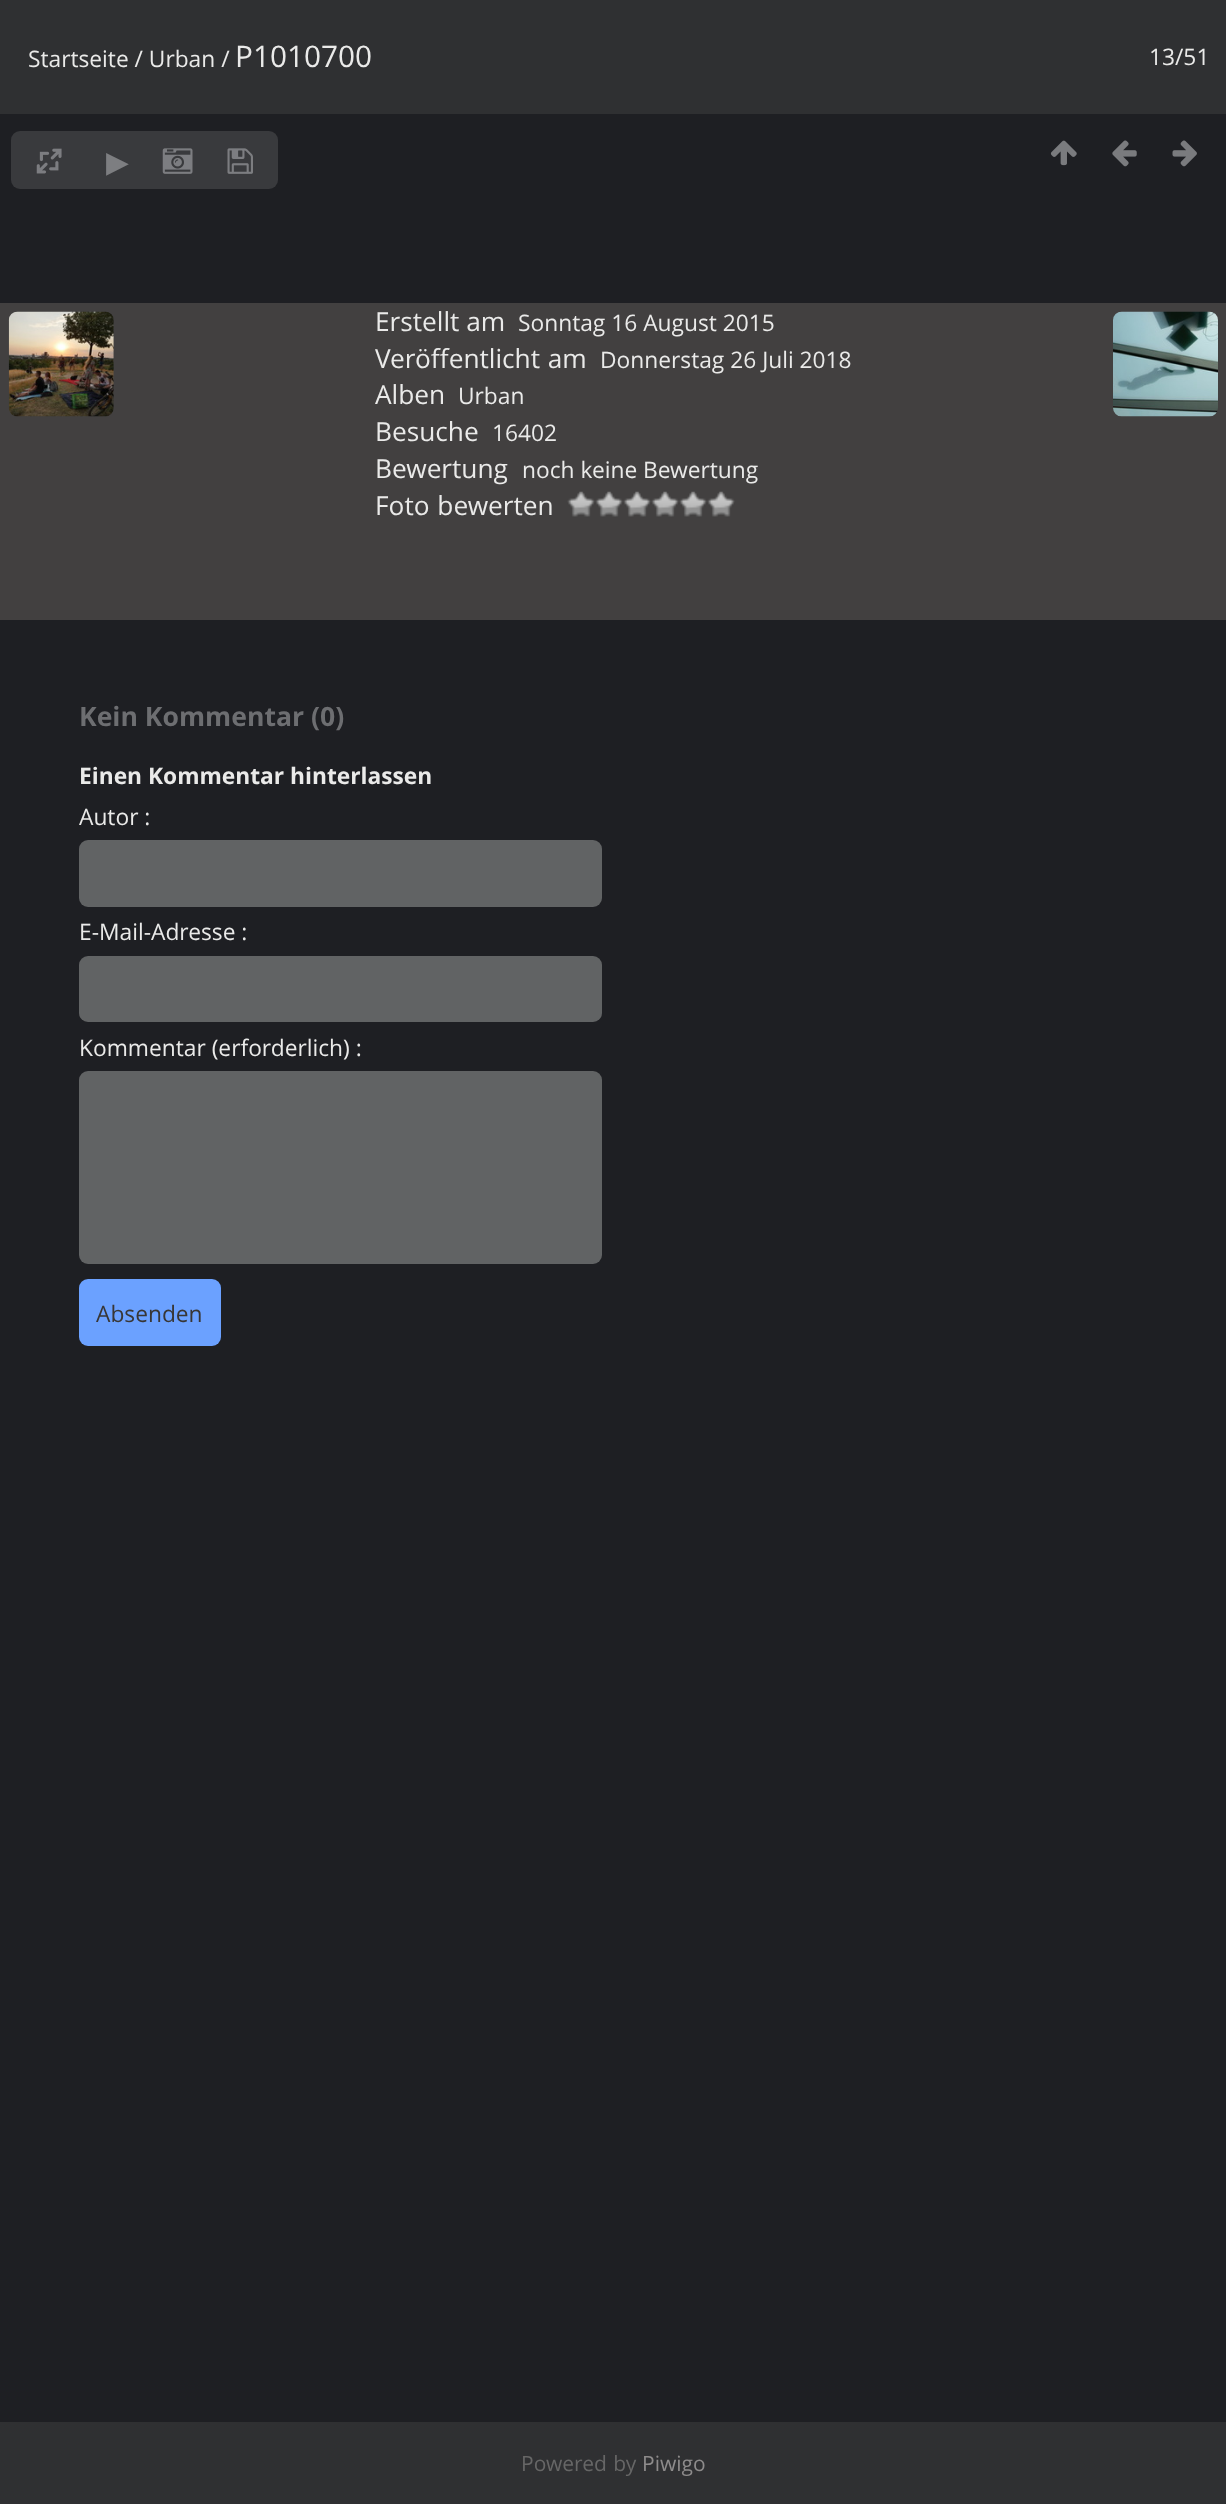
<?xml version="1.0" encoding="UTF-8"?>
<svg xmlns="http://www.w3.org/2000/svg" width="1226" height="2504">
    <rect width="100%" height="100%" fill="#1E1F23"/>
    <rect x="0" y="0" width="1226" height="114" fill="#2F3032"/>
    <text x="28" y="67" font-family="Open Sans" font-size="22.75" fill="#EAEAE9">Startseite / Urban /</text>
    <text x="235" y="67" font-family="Open Sans" font-size="29.75" fill="#EAEAE9">P1010700</text>
    <text x="1149" y="65" font-family="Open Sans" font-size="22.75" fill="#EAEAE9">13/51</text>
    <rect x="11" y="131" width="267" height="58" rx="9" fill="#393A3D"/>
    <image x="36" y="148" width="26" height="26" href="img_01.png"/>
    <text x="106" y="172" font-family="DejaVu Sans" font-size="29.75" fill="#7D7E81">▶</text>
    <image x="162" y="148" width="31" height="26" href="img_02.png"/>
    <image x="227" y="148" width="26" height="26" href="img_03.png"/>
    <image x="1050" y="140" width="27" height="26" href="img_04.png"/>
    <image x="1112" y="140" width="25" height="27" href="img_05.png"/>
    <image x="1172" y="140" width="25" height="27" href="img_06.png"/>
    <rect x="0" y="303" width="1226" height="317" fill="#424040"/>
    <image x="8" y="311" width="106" height="106" href="img_07.png"/>
    <image x="1113" y="311" width="105" height="106" href="img_08.png"/>
    <text x="375" y="331" font-family="Open Sans" font-size="26.25" fill="#EAEAE9">Erstellt am</text>
    <text x="518" y="331" font-family="Open Sans" font-size="22.75" fill="#EAEAE9">Sonntag 16 August 2015</text>
    <text x="375" y="368" word-spacing="1" font-family="Open Sans" font-size="26.25" fill="#EAEAE9">Veröffentlicht am</text>
    <text x="600" y="368" font-family="Open Sans" font-size="22.75" fill="#EAEAE9">Donnerstag 26 Juli 2018</text>
    <text x="375" y="404" font-family="Open Sans" font-size="26.25" fill="#EAEAE9">Alben</text>
    <text x="458" y="404" font-family="Open Sans" font-size="22.75" fill="#EAEAE9">Urban</text>
    <text x="375" y="441" font-family="Open Sans" font-size="26.25" fill="#EAEAE9">Besuche</text>
    <text x="492" y="441" font-family="Open Sans" font-size="22.75" fill="#EAEAE9">16402</text>
    <text x="375" y="478" font-family="Open Sans" font-size="26.25" fill="#EAEAE9">Bewertung</text>
    <text x="522" y="478" font-family="Open Sans" font-size="22.75" fill="#EAEAE9">noch keine Bewertung</text>
    <text x="375" y="515" word-spacing="1" font-family="Open Sans" font-size="26.25" fill="#EAEAE9">Foto bewerten</text>
    <image x="567" y="491" width="28" height="26" href="img_09.png"/>
    <image x="595" y="491" width="28" height="26" href="img_10.png"/>
    <image x="623" y="491" width="28" height="26" href="img_09.png"/>
    <image x="651" y="491" width="28" height="26" href="img_09.png"/>
    <image x="679" y="491" width="28" height="26" href="img_10.png"/>
    <image x="707" y="491" width="28" height="26" href="img_11.png"/>
    <text x="79" y="726" font-family="Open Sans" font-size="26.6" font-weight="700" fill="#6D6E71">Kein Kommentar (0)</text>
    <text x="79" y="784" font-family="Open Sans" font-size="22.75" font-weight="700" fill="#EAEAE9">Einen Kommentar hinterlassen</text>
    <text x="79" y="825" font-family="Open Sans" font-size="22.75" fill="#EAEAE9">Autor :</text>
    <rect x="79" y="840" width="523" height="67" rx="9" fill="#616364"/>
    <text x="79" y="940" font-family="Open Sans" font-size="22.75" fill="#EAEAE9">E-Mail-Adresse :</text>
    <rect x="79" y="956" width="523" height="66" rx="9" fill="#616364"/>
    <text x="79" y="1056" font-family="Open Sans" font-size="22.75" fill="#EAEAE9">Kommentar (erforderlich) :</text>
    <rect x="79" y="1071" width="523" height="193" rx="9" fill="#616364"/>
    <rect x="79" y="1279" width="142" height="67" rx="9" fill="#6BA1FF"/>
    <text x="96" y="1322" font-family="Open Sans" font-size="22.75" fill="#383635">Absenden</text>
    <rect x="0" y="2422" width="1226" height="82" fill="#2F3032"/>
    <text x="521" y="2471" word-spacing="1" font-family="Open Sans" font-size="21" fill="#666666">Powered by</text>
    <text x="642" y="2471" font-family="Open Sans" font-size="21" fill="#8D8B8B">Piwigo</text>
</svg>
